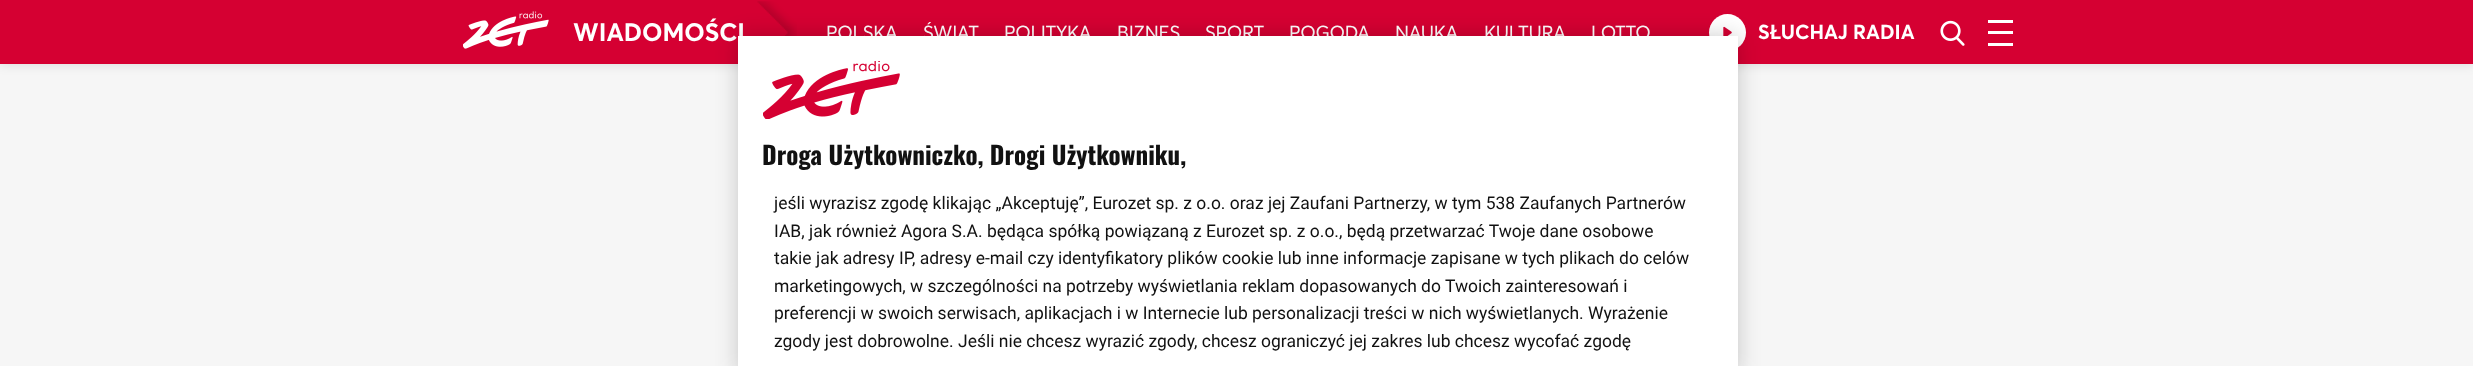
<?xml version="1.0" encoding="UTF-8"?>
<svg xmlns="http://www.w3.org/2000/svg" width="2473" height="366">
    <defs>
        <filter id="blur1" x="-50%" y="-200%" width="200%" height="500%"><feGaussianBlur stdDeviation="6"/></filter>
        <filter id="blur2" x="-50%" y="-200%" width="200%" height="500%"><feGaussianBlur stdDeviation="11"/></filter>
    </defs>
    <rect width="100%" height="100%" fill="#F6F6F6"/>
    <rect x="0" y="0" width="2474" height="64" fill="#000000" fill-opacity="0.12" filter="url(#blur1)"/>
    <rect x="0" y="0" width="2473" height="64" fill="#D50032"/>
    <image x="757" y="1" width="40" height="35" href="img_01.png"/>
    <image x="463" y="11" width="86" height="38" href="img_02.png"/>
    <text x="573" y="41" font-family="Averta" font-size="25" font-weight="700" fill="#FFFFFF">WIADOMOŚCI</text>
    <text x="826" y="39" font-family="Averta" font-size="18.75" letter-spacing="-0.25" fill="#FFFFFF">POLSKA</text>
    <text x="923" y="39" font-family="Averta" font-size="18.75" letter-spacing="-0.25" fill="#FFFFFF">ŚWIAT</text>
    <text x="1004" y="39" font-family="Averta" font-size="18.75" letter-spacing="-0.25" fill="#FFFFFF">POLITYKA</text>
    <text x="1117" y="39" font-family="Averta" font-size="18.75" letter-spacing="-0.25" fill="#FFFFFF">BIZNES</text>
    <text x="1205" y="39" font-family="Averta" font-size="18.75" letter-spacing="-0.25" fill="#FFFFFF">SPORT</text>
    <text x="1289" y="39" font-family="Averta" font-size="18.75" letter-spacing="-0.25" fill="#FFFFFF">POGODA</text>
    <text x="1395" y="39" font-family="Averta" font-size="18.75" letter-spacing="-0.25" fill="#FFFFFF">NAUKA</text>
    <text x="1484" y="39" font-family="Averta" font-size="18.75" letter-spacing="-0.25" fill="#FFFFFF">KULTURA</text>
    <text x="1591" y="39" font-family="Averta" font-size="18.75" letter-spacing="-0.25" fill="#FFFFFF">LOTTO</text>
    <circle cx="1727.5" cy="32.5" r="18.5" fill="#FFFFFF"/>
    <image x="1723" y="26" width="9" height="10" href="img_03.png"/>
    <text x="1758" y="39" font-family="Averta" font-size="20" font-weight="700" fill="#FFFFFF">SŁUCHAJ RADIA</text>
    <image x="1940" y="20" width="25" height="26" href="img_04.png"/>
    <rect x="1988" y="20" width="25" height="3" fill="#FFFFFF"/>
    <rect x="1988" y="31" width="25" height="3" fill="#FFFFFF"/>
    <rect x="1988" y="43" width="25" height="3" fill="#FFFFFF"/>
    <rect x="738" y="36" width="1000" height="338" fill="#000000" fill-opacity="0.2" filter="url(#blur2)"/>
    <rect x="738" y="36" width="1000" height="330" fill="#FFFFFF"/>
    <image x="763" y="61" width="137" height="58" href="img_05.png"/>
    <text x="762" y="165" font-family="Oswald" font-size="25" font-weight="700" fill="#111111">Droga Użytkowniczko, Drogi Użytkowniku,</text>
    <text font-family="Roboto" font-size="17.5" fill="#111111">
        <tspan x="774" y="209">jeśli wyrazisz zgodę klikając „Akceptuję”, Eurozet sp. z o.o. oraz jej Zaufani Partnerzy, w tym 538 Zaufanych Partnerów</tspan>
        <tspan x="774" y="237">IAB, jak również Agora S.A. będąca spółką powiązaną z Eurozet sp. z o.o., będą przetwarzać Twoje dane osobowe</tspan>
        <tspan x="774" y="264">takie jak adresy IP, adresy e-mail czy identyfikatory plików cookie lub inne informacje zapisane w tych plikach do celów</tspan>
        <tspan x="774" y="292">marketingowych, w szczególności na potrzeby wyświetlania reklam dopasowanych do Twoich zainteresowań i</tspan>
        <tspan x="774" y="319">preferencji w swoich serwisach, aplikacjach i w Internecie lub personalizacji treści w nich wyświetlanych. Wyrażenie</tspan>
        <tspan x="774" y="347">zgody jest dobrowolne. Jeśli nie chcesz wyrazić zgody, chcesz ograniczyć jej zakres lub chcesz wycofać zgodę</tspan>
    </text>
</svg>
